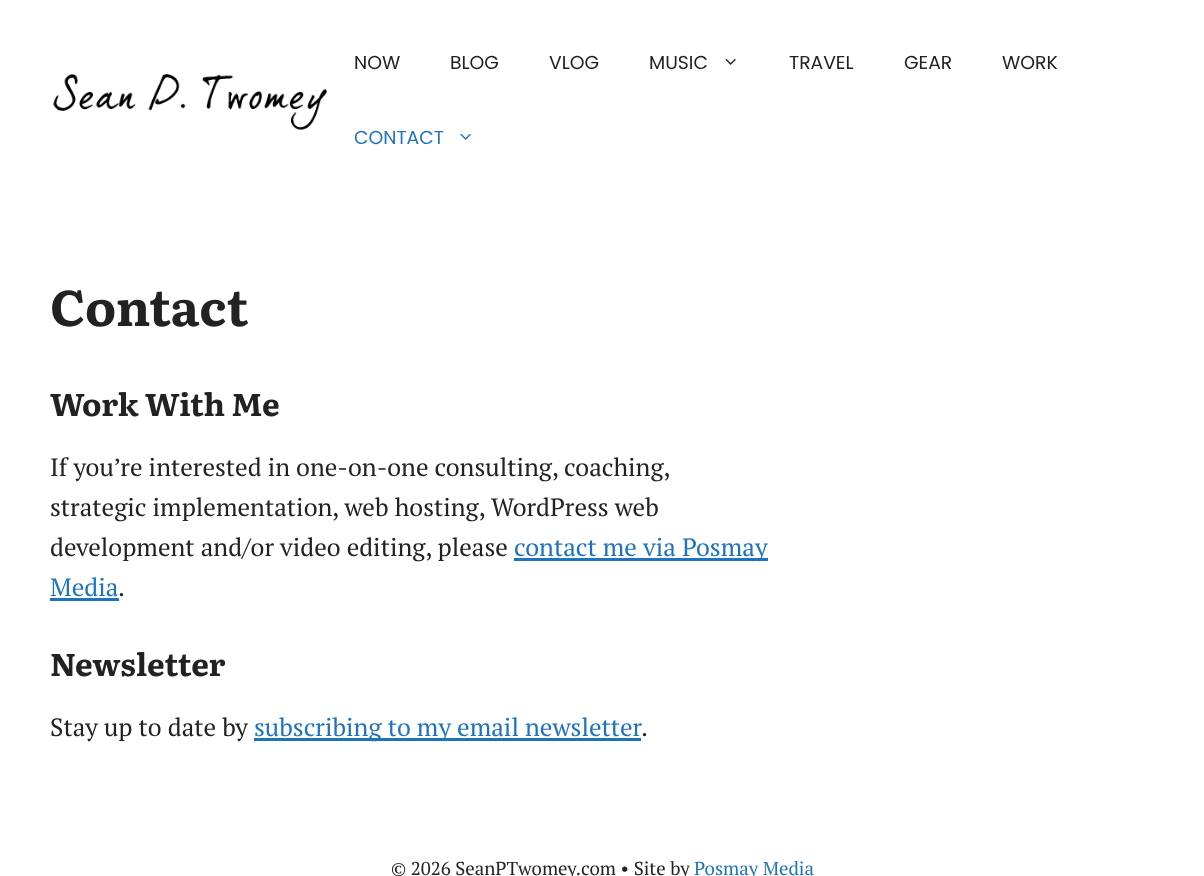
<?xml version="1.0" encoding="UTF-8"?>
<svg xmlns="http://www.w3.org/2000/svg" width="1204" height="876">
    <rect width="100%" height="100%" fill="#FFFFFF"/>
    <image x="53" y="74" width="274" height="56" href="img_01.png"/>
    <text x="354" y="69" font-family="Poppins" font-size="18.75" fill="#222222">NOW</text>
    <text x="450" y="69" font-family="Poppins" font-size="18.75" fill="#222222">BLOG</text>
    <text x="549" y="69" font-family="Poppins" font-size="18.75" fill="#222222">VLOG</text>
    <text x="649" y="69" font-family="Poppins" font-size="18.75" fill="#222222">MUSIC</text>
    <image x="725" y="58" width="11" height="7" href="img_02.png"/>
    <text x="789" y="69" font-family="Poppins" font-size="18.75" fill="#222222">TRAVEL</text>
    <text x="904" y="69" font-family="Poppins" font-size="18.75" fill="#222222">GEAR</text>
    <text x="1002" y="69" font-family="Poppins" font-size="18.75" fill="#222222">WORK</text>
    <text x="354" y="144" font-family="Poppins" font-size="18.75" fill="#1E73BE">CONTACT</text>
    <image x="460" y="133" width="11" height="7" href="img_03.png"/>
    <text x="50" y="326" font-family="Literata" font-size="50" font-weight="700" fill="#222222">Contact</text>
    <text x="50" y="416" font-family="Literata" font-size="31.25" font-weight="700" fill="#222222">Work With Me</text>
    <text font-family="PT Serif" font-size="25" fill="#222222">
        <tspan x="50" y="476">If you’re interested in one-on-one consulting, coaching,</tspan>
        <tspan x="50" y="516">strategic implementation, web hosting, WordPress web</tspan>
        <tspan x="50" y="556">development and/or video editing, please</tspan>
    </text>
    <rect x="514" y="558" width="254" height="3" fill="#1E73BE"/>
    <text x="514" y="556" font-family="PT Serif" font-size="25" fill="#1E73BE">contact me via Posmay</text>
    <text x="50" y="596" font-family="PT Serif" font-size="25" fill="#1E73BE">Media</text>
    <rect x="50" y="598" width="69" height="3" fill="#1E73BE"/>
    <text x="118" y="596" font-family="PT Serif" font-size="25" fill="#222222">.</text>
    <text x="50" y="676" font-family="Literata" font-size="31.25" font-weight="700" fill="#222222">Newsletter</text>
    <text x="50" y="736" font-family="PT Serif" font-size="25" fill="#222222">Stay up to date by</text>
    <rect x="254" y="738" width="387" height="3" fill="#1E73BE"/>
    <text x="254" y="736" font-family="PT Serif" font-size="25" fill="#1E73BE">subscribing to my email newsletter</text>
    <text x="641" y="736" font-family="PT Serif" font-size="25" fill="#222222">.</text>
    <text x="391" y="875" font-family="PT Serif" font-size="18.75" fill="#222222">© 2026 SeanPTwomey.com • Site by</text>
    <text x="694" y="875" font-family="PT Serif" font-size="18.75" fill="#1E73BE">Posmay Media</text>
</svg>
